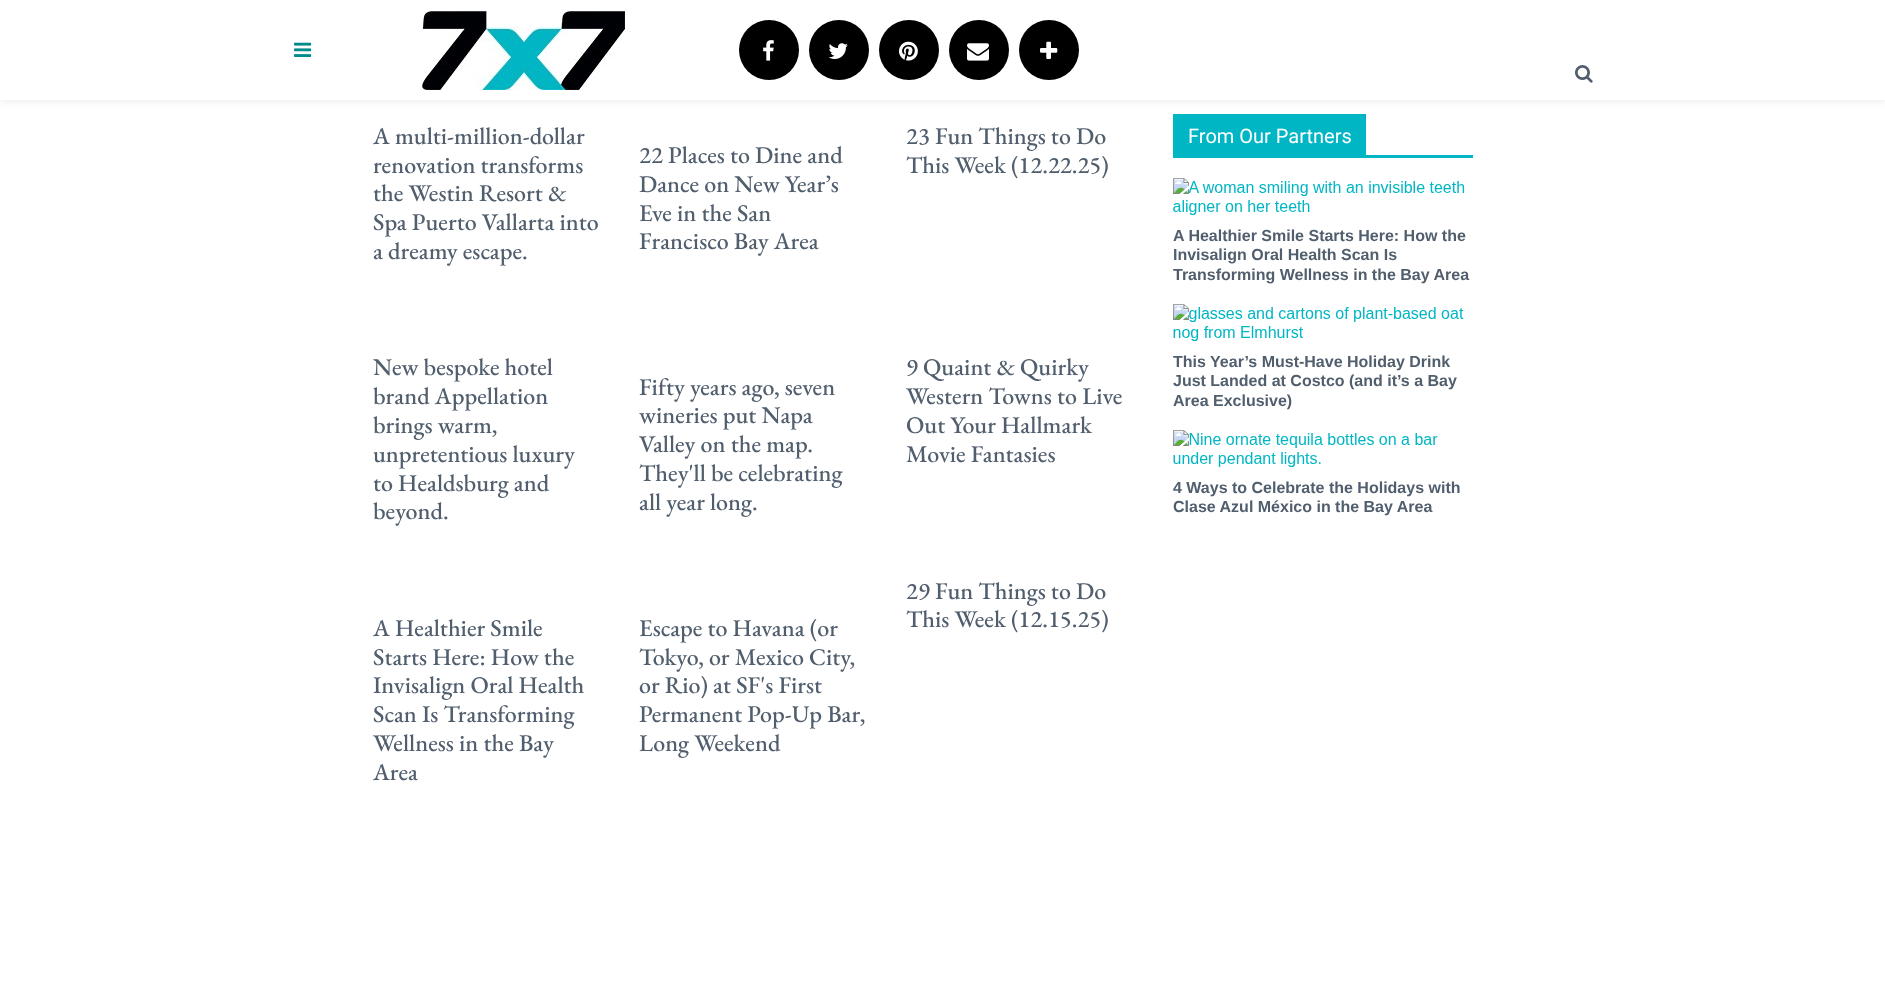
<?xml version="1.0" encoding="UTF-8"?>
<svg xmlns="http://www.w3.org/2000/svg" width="1885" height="999">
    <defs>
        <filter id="blur1" x="-50%" y="-200%" width="200%" height="500%"><feGaussianBlur stdDeviation="5"/></filter>
    </defs>
    <rect width="100%" height="100%" fill="#FFFFFF"/>
    <rect x="1173" y="114" width="193" height="41" fill="#00B6C4"/>
    <rect x="0" y="0" width="1885" height="100" fill="#000000" fill-opacity="0.1" filter="url(#blur1)"/>
    <rect x="0" y="0" width="1885" height="100" fill="#FFFFFF"/>
    <image x="294" y="42" width="18" height="15" href="img_01.png"/>
    <image x="417" y="10" width="213" height="80" href="img_02.png"/>
    <circle cx="769" cy="50" r="30" fill="#000000"/>
    <image x="763" y="40" width="11" height="21" href="img_03.png"/>
    <circle cx="839" cy="50" r="30" fill="#000000"/>
    <image x="828" y="43" width="20" height="16" href="img_04.png"/>
    <circle cx="909" cy="50" r="30" fill="#000000"/>
    <image x="899" y="41" width="19" height="20" href="img_05.png"/>
    <circle cx="979" cy="50" r="30" fill="#000000"/>
    <image x="967" y="43" width="22" height="18" href="img_06.png"/>
    <circle cx="1049" cy="50" r="30" fill="#000000"/>
    <image x="1040" y="41" width="18" height="18" href="img_07.png"/>
    <image x="1575" y="65" width="18" height="18" href="img_08.png"/>
    <text font-family="EB Garamond" font-size="24" font-weight="500" fill="#505E6D">
        <tspan x="373" y="144">A multi-million-dollar</tspan>
        <tspan x="373" y="173">renovation transforms</tspan>
        <tspan x="373" y="201">the Westin Resort &amp;</tspan>
        <tspan x="373" y="230">Spa Puerto Vallarta into</tspan>
        <tspan x="373" y="259">a dreamy escape.</tspan>
    </text>
    <text font-family="EB Garamond" font-size="24" font-weight="500" fill="#505E6D">
        <tspan x="639" y="163">22 Places to Dine and</tspan>
        <tspan x="639" y="192">Dance on New Year’s</tspan>
        <tspan x="639" y="221">Eve in the San</tspan>
        <tspan x="639" y="249">Francisco Bay Area</tspan>
    </text>
    <text font-family="EB Garamond" font-size="24" font-weight="500" fill="#505E6D">
        <tspan x="906" y="144">23 Fun Things to Do</tspan>
        <tspan x="906" y="173">This Week (12.22.25)</tspan>
    </text>
    <text font-family="EB Garamond" font-size="24" font-weight="500" fill="#505E6D">
        <tspan x="373" y="375">New bespoke hotel</tspan>
        <tspan x="373" y="404">brand Appellation</tspan>
        <tspan x="373" y="433">brings warm,</tspan>
        <tspan x="373" y="462">unpretentious luxury</tspan>
        <tspan x="373" y="491">to Healdsburg and</tspan>
        <tspan x="373" y="519">beyond.</tspan>
    </text>
    <text font-family="EB Garamond" font-size="24" font-weight="500" fill="#505E6D">
        <tspan x="639" y="395">Fifty years ago, seven</tspan>
        <tspan x="639" y="423">wineries put Napa</tspan>
        <tspan x="639" y="452">Valley on the map.</tspan>
        <tspan x="639" y="481">They'll be celebrating</tspan>
        <tspan x="639" y="510">all year long.</tspan>
    </text>
    <text font-family="EB Garamond" font-size="24" font-weight="500" fill="#505E6D">
        <tspan x="906" y="375">9 Quaint &amp; Quirky</tspan>
        <tspan x="906" y="404">Western Towns to Live</tspan>
        <tspan x="906" y="433">Out Your Hallmark</tspan>
        <tspan x="906" y="462">Movie Fantasies</tspan>
    </text>
    <text font-family="EB Garamond" font-size="24" font-weight="500" fill="#505E6D">
        <tspan x="906" y="599">29 Fun Things to Do</tspan>
        <tspan x="906" y="627">This Week (12.15.25)</tspan>
    </text>
    <text font-family="EB Garamond" font-size="24" font-weight="500" fill="#505E6D">
        <tspan x="373" y="636">A Healthier Smile</tspan>
        <tspan x="373" y="665">Starts Here: How the</tspan>
        <tspan x="373" y="693">Invisalign Oral Health</tspan>
        <tspan x="373" y="722">Scan Is Transforming</tspan>
        <tspan x="373" y="751">Wellness in the Bay</tspan>
        <tspan x="373" y="780">Area</tspan>
    </text>
    <text font-family="EB Garamond" font-size="24" font-weight="500" fill="#505E6D">
        <tspan x="639" y="636">Escape to Havana (or</tspan>
        <tspan x="639" y="665">Tokyo, or Mexico City,</tspan>
        <tspan x="639" y="693">or Rio) at SF's First</tspan>
        <tspan x="639" y="722">Permanent Pop-Up Bar,</tspan>
        <tspan x="639" y="751">Long Weekend</tspan>
    </text>
    <rect x="1173" y="155" width="300" height="3" fill="#00B6C4"/>
    <text x="1188" y="143" font-family="Roboto" font-size="20" fill="#FFFFFF">From Our Partners</text>
    <image x="1173" y="178" width="292" height="37" href="img_09.png"/>
    <text font-family="Liberation Sans" font-size="16" font-weight="700" fill="#505E6D">
        <tspan x="1173" y="241">A Healthier Smile Starts Here: How the</tspan>
        <tspan x="1173" y="260">Invisalign Oral Health Scan Is</tspan>
        <tspan x="1173" y="280">Transforming Wellness in the Bay Area</tspan>
    </text>
    <image x="1173" y="304" width="291" height="37" href="img_10.png"/>
    <text font-family="Liberation Sans" font-size="16" font-weight="700" fill="#505E6D">
        <tspan x="1173" y="367">This Year’s Must-Have Holiday Drink</tspan>
        <tspan x="1173" y="386">Just Landed at Costco (and it’s a Bay</tspan>
        <tspan x="1173" y="406">Area Exclusive)</tspan>
    </text>
    <image x="1173" y="430" width="265" height="37" href="img_11.png"/>
    <text font-family="Liberation Sans" font-size="16" font-weight="700" fill="#505E6D">
        <tspan x="1173" y="493">4 Ways to Celebrate the Holidays with</tspan>
        <tspan x="1173" y="512">Clase Azul México in the Bay Area</tspan>
    </text>
</svg>
